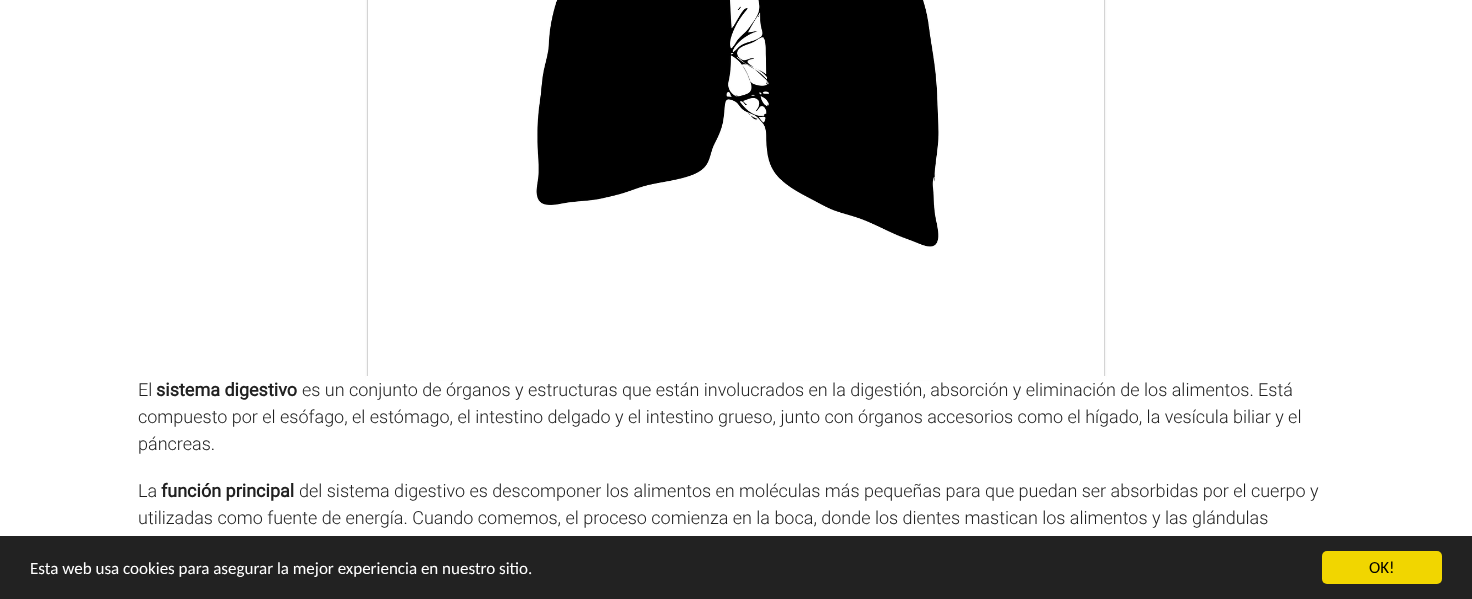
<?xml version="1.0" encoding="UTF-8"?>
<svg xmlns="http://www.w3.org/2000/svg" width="1472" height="599">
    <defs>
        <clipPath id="clip1"><path d="M 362 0 H 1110 V 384 H 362 Z M 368 -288 H 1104 V 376 H 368 Z" clip-rule="evenodd"/></clipPath>
        <filter id="blur1" x="-50%" y="-200%" width="200%" height="500%"><feGaussianBlur stdDeviation="1.5"/></filter>
    </defs>
    <rect width="100%" height="100%" fill="#FFFFFF"/>
    <g clip-path="url(#clip1)">
        <rect x="368" y="-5" width="736" height="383" fill="#000000" fill-opacity="0.2" filter="url(#blur1)"/>
    </g>
    <rect x="367.5" y="-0.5" width="737" height="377" fill="none" stroke="#000000" stroke-opacity="0.1"/>
    <image x="535" y="0" width="404" height="247" href="img_01.png"/>
    <rect x="366" y="376" width="740" height="4" fill="#FFFFFF"/>
    <text x="138" y="396" font-family="Roboto" font-size="18" font-weight="300" fill="#212121">El</text>
    <text x="156" y="396" font-family="Roboto" font-size="18" font-weight="700" fill="#212121">sistema digestivo</text>
    <text x="302" y="396" font-family="Roboto" font-size="18" font-weight="300" fill="#212121">es un conjunto de órganos y estructuras que están involucrados en la digestión, absorción y eliminación de los alimentos. Está</text>
    <text font-family="Roboto" font-size="18" font-weight="300" fill="#212121">
        <tspan x="138" y="423">compuesto por el esófago, el estómago, el intestino delgado y el intestino grueso, junto con órganos accesorios como el hígado, la vesícula biliar y el</tspan>
        <tspan x="138" y="450">páncreas.</tspan>
    </text>
    <text x="138" y="497" font-family="Roboto" font-size="18" font-weight="300" fill="#212121">La</text>
    <text x="161" y="497" font-family="Roboto" font-size="18" font-weight="700" fill="#212121">función principal</text>
    <text x="299" y="497" font-family="Roboto" font-size="18" font-weight="300" fill="#212121">del sistema digestivo es descomponer los alimentos en moléculas más pequeñas para que puedan ser absorbidas por el cuerpo y</text>
    <text x="138" y="524" font-family="Roboto" font-size="18" font-weight="300" fill="#212121">utilizadas como fuente de energía. Cuando comemos, el proceso comienza en la boca, donde los dientes mastican los alimentos y las glándulas</text>
    <rect x="0" y="536" width="1472" height="63" fill="#222222"/>
    <text x="30" y="574" font-family="Carlito" font-size="17" fill="#FFFFFF">Esta web usa cookies para asegurar la mejor experiencia en nuestro sitio.</text>
    <rect x="1322" y="551" width="120" height="33" rx="5" fill="#F1D600"/>
    <text x="1369" y="573" font-family="Carlito" font-size="17" fill="#000000">OK!</text>
</svg>
